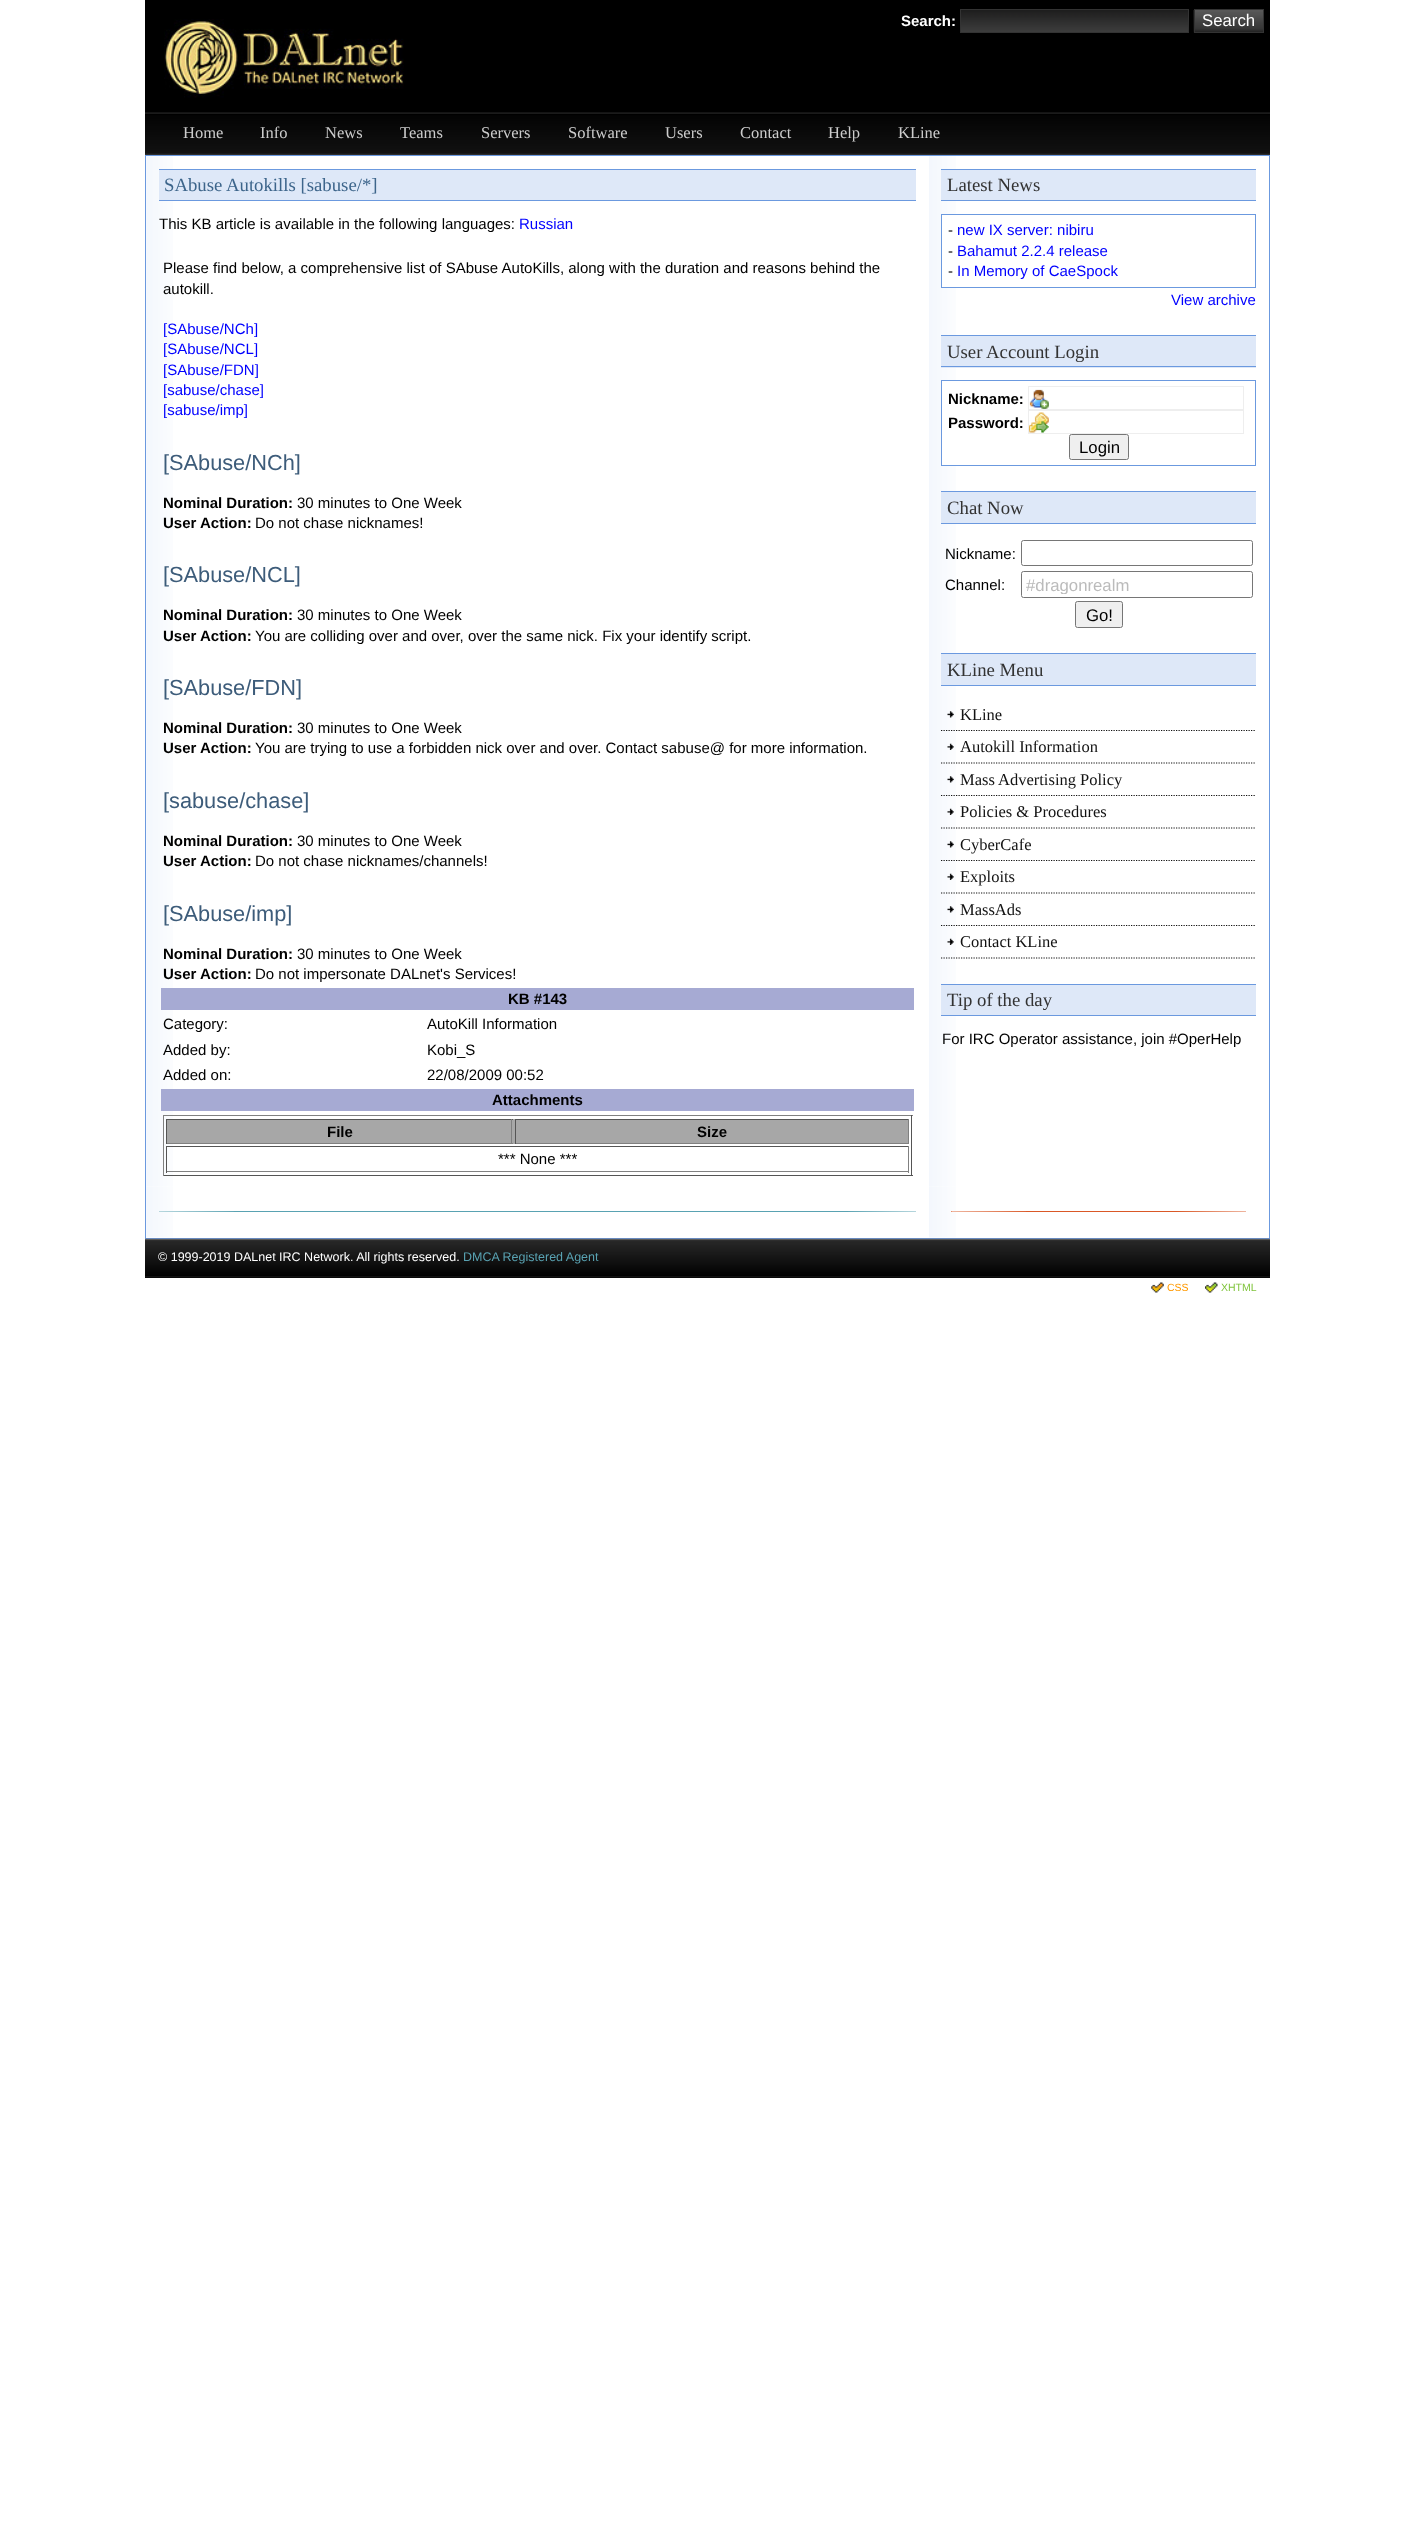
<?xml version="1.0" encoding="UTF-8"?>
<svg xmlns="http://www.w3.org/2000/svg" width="1415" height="2523">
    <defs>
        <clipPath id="clip1"><rect x="1026" y="575" width="222" height="19"/></clipPath>
    </defs>
    <rect width="100%" height="100%" fill="#FFFFFF"/>
    <rect x="145" y="0" width="1125" height="113" fill="#000000"/>
    <image x="164" y="19" width="240" height="79" href="img_01.png"/>
    <text x="901" y="26" font-family="Liberation Sans" font-size="15" font-weight="700" fill="#FFFFFF">Search:</text>
    <image x="961" y="10" width="227" height="22" href="img_02.png"/>
    <rect x="960.5" y="9.5" width="228" height="23" fill="none" stroke="#333333"/>
    <image x="1193" y="10" width="70" height="23" href="img_03.png"/>
    <rect x="1194.5" y="9.5" width="69" height="23" fill="none" stroke="#333333"/>
    <text x="1202" y="26" font-family="Liberation Sans" font-size="16.75" fill="#FFFFFF">Search</text>
    <image x="145" y="112" width="1125" height="43" href="img_04.png"/>
    <text x="183" y="138" font-family="Liberation Serif" font-size="16.5" fill="#CCCCCC">Home</text>
    <text x="260" y="138" font-family="Liberation Serif" font-size="16.5" fill="#CCCCCC">Info</text>
    <text x="325" y="138" font-family="Liberation Serif" font-size="16.5" fill="#CCCCCC">News</text>
    <text x="400" y="138" font-family="Liberation Serif" font-size="16.5" fill="#CCCCCC">Teams</text>
    <text x="481" y="138" font-family="Liberation Serif" font-size="16.5" fill="#CCCCCC">Servers</text>
    <text x="568" y="138" font-family="Liberation Serif" font-size="16.5" fill="#CCCCCC">Software</text>
    <text x="665" y="138" font-family="Liberation Serif" font-size="16.5" fill="#CCCCCC">Users</text>
    <text x="740" y="138" font-family="Liberation Serif" font-size="16.5" fill="#CCCCCC">Contact</text>
    <text x="828" y="138" font-family="Liberation Serif" font-size="16.5" fill="#CCCCCC">Help</text>
    <text x="898" y="138" font-family="Liberation Serif" font-size="16.5" fill="#CCCCCC">KLine</text>
    <rect x="145.5" y="155.5" width="1124" height="1083" fill="none" stroke="#6B99DF"/>
    <image x="146" y="156" width="27" height="1030" href="img_05.png"/>
    <rect x="159" y="170" width="757" height="30" fill="#DEE8F8"/>
    <rect x="159" y="169" width="757" height="1" fill="#6B99DF"/>
    <rect x="159" y="200" width="757" height="1" fill="#6B99DF"/>
    <text x="164" y="191" font-family="Liberation Serif" font-size="18.75" fill="#3D658B">SAbuse Autokills [sabuse/*]</text>
    <text x="159" y="229" font-family="Liberation Sans" font-size="15" fill="#000000">This KB article is available in the following languages:</text>
    <text x="519" y="229" font-family="Liberation Sans" font-size="15" fill="#0000FF">Russian</text>
    <text font-family="Liberation Sans" font-size="15" fill="#000000">
        <tspan x="163" y="273">Please find below, a comprehensive list of SAbuse AutoKills, along with the duration and reasons behind the</tspan>
        <tspan x="163" y="294">autokill.</tspan>
    </text>
    <text font-family="Liberation Sans" font-size="15" fill="#0000FF">
        <tspan x="163" y="334">[SAbuse/NCh]</tspan>
        <tspan x="163" y="354">[SAbuse/NCL]</tspan>
        <tspan x="163" y="375">[SAbuse/FDN]</tspan>
        <tspan x="163" y="395">[sabuse/chase]</tspan>
        <tspan x="163" y="415">[sabuse/imp]</tspan>
    </text>
    <text x="163" y="470" font-family="Liberation Sans" font-size="21.75" fill="#3D5C7A">[SAbuse/NCh]</text>
    <text x="163" y="508" font-family="Liberation Sans" font-size="15" font-weight="700" fill="#000000">Nominal Duration:</text>
    <text x="297" y="508" font-family="Liberation Sans" font-size="15" fill="#000000">30 minutes to One Week</text>
    <text x="163" y="528" font-family="Liberation Sans" font-size="15" font-weight="700" fill="#000000">User Action:</text>
    <text x="255" y="528" font-family="Liberation Sans" font-size="15" fill="#000000">Do not chase nicknames!</text>
    <text x="163" y="582" font-family="Liberation Sans" font-size="21.75" fill="#3D5C7A">[SAbuse/NCL]</text>
    <text x="163" y="620" font-family="Liberation Sans" font-size="15" font-weight="700" fill="#000000">Nominal Duration:</text>
    <text x="297" y="620" font-family="Liberation Sans" font-size="15" fill="#000000">30 minutes to One Week</text>
    <text x="163" y="641" font-family="Liberation Sans" font-size="15" font-weight="700" fill="#000000">User Action:</text>
    <text x="255" y="641" font-family="Liberation Sans" font-size="15" fill="#000000">You are colliding over and over, over the same nick. Fix your identify script.</text>
    <text x="163" y="695" font-family="Liberation Sans" font-size="21.75" fill="#3D5C7A">[SAbuse/FDN]</text>
    <text x="163" y="733" font-family="Liberation Sans" font-size="15" font-weight="700" fill="#000000">Nominal Duration:</text>
    <text x="297" y="733" font-family="Liberation Sans" font-size="15" fill="#000000">30 minutes to One Week</text>
    <text x="163" y="753" font-family="Liberation Sans" font-size="15" font-weight="700" fill="#000000">User Action:</text>
    <text x="255" y="753" font-family="Liberation Sans" font-size="15" fill="#000000">You are trying to use a forbidden nick over and over. Contact sabuse@ for more information.</text>
    <text x="163" y="808" font-family="Liberation Sans" font-size="21.75" fill="#3D5C7A">[sabuse/chase]</text>
    <text x="163" y="846" font-family="Liberation Sans" font-size="15" font-weight="700" fill="#000000">Nominal Duration:</text>
    <text x="297" y="846" font-family="Liberation Sans" font-size="15" fill="#000000">30 minutes to One Week</text>
    <text x="163" y="866" font-family="Liberation Sans" font-size="15" font-weight="700" fill="#000000">User Action:</text>
    <text x="255" y="866" font-family="Liberation Sans" font-size="15" fill="#000000">Do not chase nicknames/channels!</text>
    <text x="163" y="921" font-family="Liberation Sans" font-size="21.75" fill="#3D5C7A">[SAbuse/imp]</text>
    <text x="163" y="959" font-family="Liberation Sans" font-size="15" font-weight="700" fill="#000000">Nominal Duration:</text>
    <text x="297" y="959" font-family="Liberation Sans" font-size="15" fill="#000000">30 minutes to One Week</text>
    <text x="163" y="979" font-family="Liberation Sans" font-size="15" font-weight="700" fill="#000000">User Action:</text>
    <text x="255" y="979" font-family="Liberation Sans" font-size="15" fill="#000000">Do not impersonate DALnet's Services!</text>
    <rect x="161" y="988" width="753" height="22" fill="#A6AAD3"/>
    <text x="508" y="1004" font-family="Liberation Sans" font-size="15" font-weight="700" fill="#000000">KB #143</text>
    <text x="163" y="1029" font-family="Liberation Sans" font-size="15" fill="#000000">Category:</text>
    <text x="427" y="1029" font-family="Liberation Sans" font-size="15" fill="#000000">AutoKill Information</text>
    <text x="163" y="1055" font-family="Liberation Sans" font-size="15" fill="#000000">Added by:</text>
    <text x="427" y="1055" font-family="Liberation Sans" font-size="15" fill="#000000">Kobi_S</text>
    <text x="163" y="1080" font-family="Liberation Sans" font-size="15" fill="#000000">Added on:</text>
    <text x="427" y="1080" font-family="Liberation Sans" font-size="15" fill="#000000">22/08/2009 00:52</text>
    <rect x="161" y="1089" width="753" height="22" fill="#A6AAD3"/>
    <text x="492" y="1105" font-family="Liberation Sans" font-size="15" font-weight="700" fill="#000000">Attachments</text>
    <rect x="163" y="1115" width="750" height="1" fill="#808080"/>
    <rect x="911" y="1115" width="1" height="61" fill="#555555"/>
    <rect x="163" y="1175" width="750" height="1" fill="#555555"/>
    <rect x="163" y="1115" width="1" height="61" fill="#808080"/>
    <rect x="167" y="1119" width="741" height="25" fill="#A7A7A7"/>
    <rect x="166" y="1119" width="347" height="1" fill="#555555"/>
    <rect x="511" y="1119" width="1" height="25" fill="#808080"/>
    <rect x="166" y="1143" width="347" height="1" fill="#808080"/>
    <rect x="166" y="1119" width="1" height="25" fill="#555555"/>
    <text x="327" y="1137" font-family="Liberation Sans" font-size="15" font-weight="700" fill="#000000">File</text>
    <rect x="515" y="1119" width="394" height="1" fill="#555555"/>
    <rect x="908" y="1119" width="1" height="25" fill="#808080"/>
    <rect x="515" y="1143" width="394" height="1" fill="#808080"/>
    <rect x="515" y="1119" width="1" height="25" fill="#555555"/>
    <text x="697" y="1137" font-family="Liberation Sans" font-size="15" font-weight="700" fill="#000000">Size</text>
    <rect x="166" y="1146" width="743" height="1" fill="#555555"/>
    <rect x="908" y="1146" width="1" height="27" fill="#808080"/>
    <rect x="166" y="1171" width="743" height="1" fill="#808080"/>
    <rect x="166" y="1146" width="1" height="27" fill="#555555"/>
    <text x="498" y="1164" font-family="Liberation Sans" font-size="15" fill="#000000">*** None ***</text>
    <image x="929" y="156" width="27" height="1030" href="img_06.png"/>
    <rect x="941" y="170" width="315" height="30" fill="#DEE8F8"/>
    <rect x="941" y="169" width="315" height="1" fill="#6B99DF"/>
    <rect x="941" y="200" width="315" height="1" fill="#6B99DF"/>
    <text x="947" y="191" font-family="Liberation Serif" font-size="18.75" fill="#333333">Latest News</text>
    <rect x="942" y="215" width="14" height="72" fill="#FFFFFF"/>
    <rect x="941.5" y="214.5" width="314" height="73" fill="none" stroke="#6B99DF"/>
    <text x="948" y="235" font-family="Liberation Sans" font-size="15" fill="#000000">-</text>
    <text x="957" y="235" font-family="Liberation Sans" font-size="15" fill="#0000FF">new IX server: nibiru</text>
    <text x="948" y="256" font-family="Liberation Sans" font-size="15" fill="#000000">-</text>
    <text x="957" y="256" font-family="Liberation Sans" font-size="15" fill="#0000FF">Bahamut 2.2.4 release</text>
    <text x="948" y="276" font-family="Liberation Sans" font-size="15" fill="#000000">-</text>
    <text x="957" y="276" font-family="Liberation Sans" font-size="15" fill="#0000FF">In Memory of CaeSpock</text>
    <text x="1171" y="305" font-family="Liberation Sans" font-size="15" fill="#0000FF">View archive</text>
    <rect x="941" y="336" width="315" height="32" fill="#DEE8F8"/>
    <rect x="941" y="335" width="315" height="1" fill="#6B99DF"/>
    <rect x="941" y="366" width="315" height="1" fill="#6B99DF"/>
    <text x="947" y="358" font-family="Liberation Serif" font-size="18.75" fill="#333333">User Account Login</text>
    <rect x="942" y="381" width="14" height="84" fill="#FFFFFF"/>
    <rect x="941.5" y="380.5" width="314" height="85" fill="none" stroke="#6B99DF"/>
    <text x="948" y="404" font-family="Liberation Sans" font-size="15" font-weight="700" fill="#000000">Nickname:</text>
    <image x="1029" y="389" width="20" height="20" href="img_07.png"/>
    <rect x="1028.5" y="386.5" width="215" height="23" fill="none" stroke="#EEEEEE"/>
    <text x="948" y="428" font-family="Liberation Sans" font-size="15" font-weight="700" fill="#000000">Password:</text>
    <image x="1029" y="412" width="20" height="21" href="img_08.png"/>
    <rect x="1028.5" y="410.5" width="215" height="23" fill="none" stroke="#EEEEEE"/>
    <rect x="1069.5" y="434.5" width="59" height="25" rx="2" fill="#EFEFEF" stroke="#767676"/>
    <text x="1079" y="453" font-family="Liberation Sans" font-size="16.75" fill="#000000">Login</text>
    <rect x="941" y="492" width="315" height="31" fill="#DEE8F8"/>
    <rect x="941" y="491" width="315" height="1" fill="#6B99DF"/>
    <rect x="941" y="523" width="315" height="1" fill="#6B99DF"/>
    <text x="947" y="514" font-family="Liberation Serif" font-size="18.75" fill="#333333">Chat Now</text>
    <text x="945" y="559" font-family="Liberation Sans" font-size="15" fill="#000000">Nickname:</text>
    <rect x="1021.5" y="540.5" width="231" height="25" rx="2" fill="none" stroke="#767676"/>
    <text x="945" y="590" font-family="Liberation Sans" font-size="15" fill="#000000">Channel:</text>
    <rect x="1021.5" y="571.5" width="231" height="26" rx="2" fill="none" stroke="#767676"/>
    <g clip-path="url(#clip1)">
        <text x="1026" y="591" font-family="Liberation Sans" font-size="16.75" fill="#BBBBBB">#dragonrealm</text>
    </g>
    <rect x="1075.5" y="601.5" width="47" height="26" rx="2" fill="#EFEFEF" stroke="#767676"/>
    <text x="1086" y="621" font-family="Liberation Sans" font-size="16.75" fill="#000000">Go!</text>
    <rect x="941" y="654" width="315" height="31" fill="#DEE8F8"/>
    <rect x="941" y="653" width="315" height="1" fill="#6B99DF"/>
    <rect x="941" y="685" width="315" height="1" fill="#6B99DF"/>
    <text x="947" y="676" font-family="Liberation Serif" font-size="18.75" fill="#333333">KLine Menu</text>
    <image x="947" y="711" width="7" height="7" href="img_09.png"/>
    <path d="M 941 730.5 H 1256" fill="none" stroke="#121212" stroke-width="1.2" stroke-dasharray="1.25 1.25"/>
    <text x="960" y="720" font-family="Liberation Serif" font-size="16.5" fill="#121212">KLine</text>
    <image x="947" y="743" width="7" height="7" href="img_10.png"/>
    <path d="M 941 763 H 1256" fill="none" stroke="#121212" stroke-width="1.2" stroke-dasharray="1.25 1.25"/>
    <text x="960" y="752" font-family="Liberation Serif" font-size="16.5" fill="#121212">Autokill Information</text>
    <image x="947" y="776" width="7" height="7" href="img_09.png"/>
    <path d="M 941 795.5 H 1256" fill="none" stroke="#121212" stroke-width="1.2" stroke-dasharray="1.25 1.25"/>
    <text x="960" y="785" font-family="Liberation Serif" font-size="16.5" fill="#121212">Mass Advertising Policy</text>
    <image x="947" y="808" width="7" height="7" href="img_10.png"/>
    <path d="M 941 828 H 1256" fill="none" stroke="#121212" stroke-width="1.2" stroke-dasharray="1.25 1.25"/>
    <text x="960" y="817" font-family="Liberation Serif" font-size="16.5" fill="#121212">Policies &amp; Procedures</text>
    <image x="947" y="841" width="7" height="7" href="img_09.png"/>
    <path d="M 941 860.5 H 1256" fill="none" stroke="#121212" stroke-width="1.2" stroke-dasharray="1.25 1.25"/>
    <text x="960" y="850" font-family="Liberation Serif" font-size="16.5" fill="#121212">CyberCafe</text>
    <image x="947" y="873" width="7" height="7" href="img_10.png"/>
    <path d="M 941 893 H 1256" fill="none" stroke="#121212" stroke-width="1.2" stroke-dasharray="1.25 1.25"/>
    <text x="960" y="882" font-family="Liberation Serif" font-size="16.5" fill="#121212">Exploits</text>
    <image x="947" y="906" width="7" height="7" href="img_09.png"/>
    <path d="M 941 925.5 H 1256" fill="none" stroke="#121212" stroke-width="1.2" stroke-dasharray="1.25 1.25"/>
    <text x="960" y="915" font-family="Liberation Serif" font-size="16.5" fill="#121212">MassAds</text>
    <image x="947" y="938" width="7" height="7" href="img_10.png"/>
    <path d="M 941 958 H 1256" fill="none" stroke="#121212" stroke-width="1.2" stroke-dasharray="1.25 1.25"/>
    <text x="960" y="947" font-family="Liberation Serif" font-size="16.5" fill="#121212">Contact KLine</text>
    <rect x="941" y="985" width="315" height="30" fill="#DEE8F8"/>
    <rect x="941" y="984" width="315" height="1" fill="#6B99DF"/>
    <rect x="941" y="1015" width="315" height="1" fill="#6B99DF"/>
    <text x="947" y="1006" font-family="Liberation Serif" font-size="18.75" fill="#333333">Tip of the day</text>
    <text x="942" y="1044" font-family="Liberation Sans" font-size="15" fill="#000000">For IRC Operator assistance, join #OperHelp</text>
    <image x="146" y="1186" width="27" height="52" href="img_11.png"/>
    <rect x="159" y="1211" width="757" height="1" fill="#59A2B2"/>
    <image x="159" y="1211" width="75" height="1" href="img_12.png"/>
    <image x="848" y="1211" width="68" height="1" href="img_13.png"/>
    <image x="929" y="1186" width="27" height="52" href="img_14.png"/>
    <rect x="951" y="1211" width="295" height="1" fill="#DA5826"/>
    <image x="951" y="1211" width="75" height="1" href="img_15.png"/>
    <image x="1177" y="1211" width="69" height="1" href="img_16.png"/>
    <rect x="145" y="1277" width="1125" height="1" fill="#121212"/>
    <image x="145" y="1238" width="1125" height="40" href="img_17.png"/>
    <rect x="145" y="1276" width="1125" height="1" fill="#121212"/>
    <text x="158" y="1261" font-family="Liberation Sans" font-size="12.5" fill="#FFFFFF">© 1999-2019 DALnet IRC Network. All rights reserved.</text>
    <text x="463" y="1261" font-family="Liberation Sans" font-size="12.5" fill="#59A2B2">DMCA Registered Agent</text>
    <image x="1151" y="1282" width="13" height="11" href="img_18.png"/>
    <text x="1167" y="1291" font-family="Liberation Sans" font-size="10.5" fill="#FF9900">CSS</text>
    <image x="1205" y="1282" width="13" height="11" href="img_19.png"/>
    <text x="1221" y="1291" font-family="Liberation Sans" font-size="10.5" fill="#80C43D">XHTML</text>
</svg>
